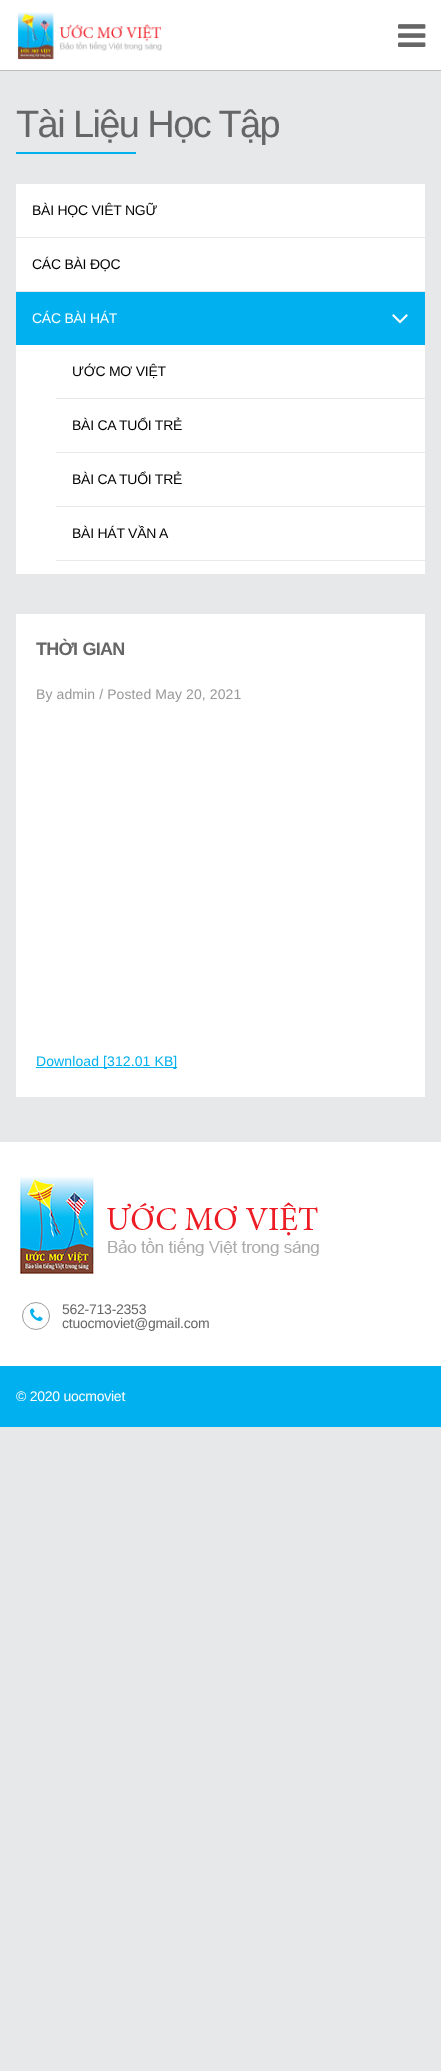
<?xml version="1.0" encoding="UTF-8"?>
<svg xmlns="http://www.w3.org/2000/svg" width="441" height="2071">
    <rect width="100%" height="100%" fill="#E7E8EA"/>
    <rect x="0" y="0" width="441" height="70" fill="#FFFFFF"/>
    <rect x="0" y="70" width="441" height="1" fill="#BCBCBC"/>
    <image x="18" y="12" width="144" height="48" href="img_01.png"/>
    <image x="398" y="24" width="28" height="23" href="img_02.png"/>
    <text x="16" y="137" font-family="Liberation Sans" font-size="38" letter-spacing="-1.6" fill="#666666">Tài Liệu Học Tập</text>
    <rect x="16" y="152" width="120" height="2" fill="#01B0EF"/>
    <rect x="16" y="184" width="409" height="390" fill="#FFFFFF"/>
    <rect x="16" y="237" width="409" height="1" fill="#E7E8EA"/>
    <text x="32" y="215" font-family="Liberation Sans" font-size="14" letter-spacing="-0.25" fill="#000000">BÀI HỌC VIÊT NGỮ</text>
    <rect x="16" y="291" width="409" height="1" fill="#E7E8EA"/>
    <text x="32" y="269" font-family="Liberation Sans" font-size="14" letter-spacing="-0.25" fill="#000000">CÁC BÀI ĐỌC</text>
    <rect x="16" y="292" width="409" height="53" fill="#01B0EF"/>
    <text x="32" y="323" font-family="Liberation Sans" font-size="14" letter-spacing="-0.25" fill="#FFFFFF">CÁC BÀI HÁT</text>
    <image x="392" y="314" width="16" height="10" href="img_03.png"/>
    <rect x="56" y="398" width="369" height="1" fill="#E7E8EA"/>
    <text x="72" y="376" font-family="Liberation Sans" font-size="14" letter-spacing="-0.25" fill="#000000">ƯỚC MƠ VIỆT</text>
    <rect x="56" y="452" width="369" height="1" fill="#E7E8EA"/>
    <text x="72" y="430" font-family="Liberation Sans" font-size="14" letter-spacing="-0.25" fill="#000000">BÀI CA TUỔI TRẺ</text>
    <rect x="56" y="506" width="369" height="1" fill="#E7E8EA"/>
    <text x="72" y="484" font-family="Liberation Sans" font-size="14" letter-spacing="-0.25" fill="#000000">BÀI CA TUỔI TRẺ</text>
    <rect x="56" y="560" width="369" height="1" fill="#E7E8EA"/>
    <text x="72" y="538" font-family="Liberation Sans" font-size="14" letter-spacing="-0.25" fill="#000000">BÀI HÁT VẦN A</text>
    <rect x="16" y="614" width="409" height="483" fill="#FFFFFF"/>
    <text x="36" y="655" word-spacing="1" font-family="Liberation Sans" font-size="18" font-weight="700" letter-spacing="-0.75" fill="#666666">THỜI GIAN</text>
    <text x="36" y="699" font-family="Liberation Sans" font-size="14" letter-spacing="0.1" fill="#999999">By admin / Posted May 20, 2021</text>
    <rect x="36" y="1067" width="141" height="1" fill="#01B0EF"/>
    <text x="36" y="1066" font-family="Liberation Sans" font-size="14" letter-spacing="0.1" fill="#01B0EF">Download [312.01 KB]</text>
    <rect x="0" y="1142" width="441" height="224" fill="#FFFFFF"/>
    <image x="20" y="1177" width="299" height="97" href="img_04.png"/>
    <circle cx="36" cy="1316" r="13.5" fill="none" stroke="#9B9B9B"/>
    <image x="30" y="1308" width="13" height="13" href="img_05.png"/>
    <text font-family="Liberation Sans" font-size="14" letter-spacing="-0.25" fill="#666666">
        <tspan x="62" y="1314">562-713-2353</tspan>
        <tspan x="62" y="1328">ctuocmoviet@gmail.com</tspan>
    </text>
    <rect x="0" y="1366" width="441" height="61" fill="#01B0EF"/>
    <text x="16" y="1401" font-family="Liberation Sans" font-size="14" letter-spacing="-0.25" fill="#FFFFFF">© 2020 uocmoviet</text>
</svg>
